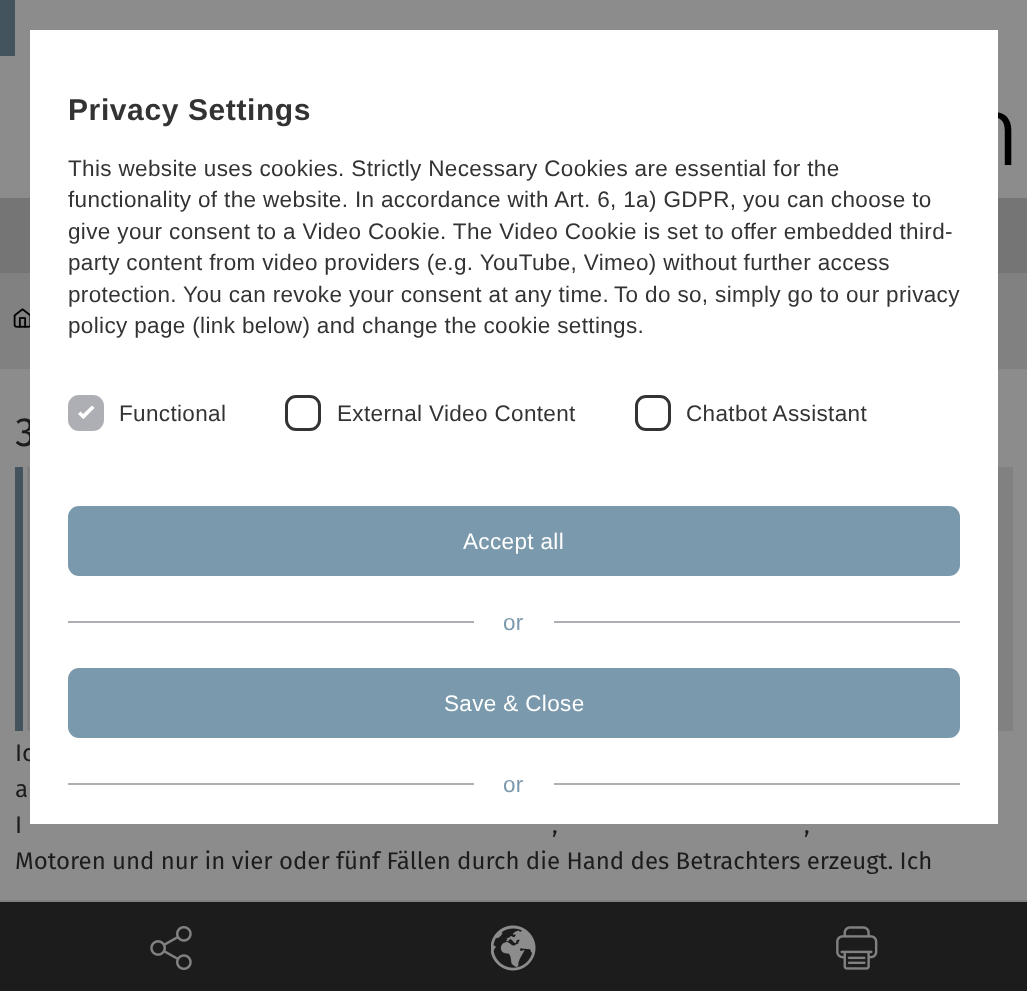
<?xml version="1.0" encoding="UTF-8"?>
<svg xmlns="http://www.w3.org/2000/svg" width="1027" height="991">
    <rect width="100%" height="100%" fill="#8C8C8C"/>
    <rect x="0" y="0" width="15" height="56" fill="#43545F"/>
    <image x="998" y="112" width="14" height="53" href="img_01.png"/>
    <rect x="0" y="198" width="1027" height="75" fill="#757575"/>
    <rect x="0" y="273" width="1027" height="96" fill="#818181"/>
    <image x="13" y="308" width="17" height="20" href="img_02.png"/>
    <rect x="0" y="900" width="1027" height="2" fill="#818181"/>
    <rect x="0" y="902" width="1027" height="89" fill="#1C1C1C"/>
    <image x="150" y="926" width="42" height="44" href="img_03.png"/>
    <image x="491" y="925" width="45" height="46" href="img_04.png"/>
    <image x="836" y="926" width="42" height="44" href="img_05.png"/>
    <text x="15" y="446" font-family="Fira Sans" font-size="41" letter-spacing="1" fill="#1C1C1C">3</text>
    <rect x="27" y="467" width="986" height="264" fill="#818181"/>
    <text x="15" y="761" font-family="Fira Sans" font-size="24" fill="#1C1C1C">Ic</text>
    <rect x="30" y="30" width="968" height="794" fill="#FFFFFF"/>
    <text x="68" y="120" font-family="Liberation Sans" font-size="30" font-weight="700" letter-spacing="0.6" fill="#333333">Privacy Settings</text>
    <text font-family="Liberation Sans" font-size="22.5" letter-spacing="0.35" fill="#333333">
        <tspan x="68" y="176">This website uses cookies. Strictly Necessary Cookies are essential for the</tspan>
        <tspan x="68" y="207">functionality of the website. In accordance with Art. 6, 1a) GDPR, you can choose to</tspan>
        <tspan x="68" y="239">give your consent to a Video Cookie. The Video Cookie is set to offer embedded third-</tspan>
        <tspan x="68" y="270">party content from video providers (e.g. YouTube, Vimeo) without further access</tspan>
        <tspan x="68" y="302">protection. You can revoke your consent at any time.</tspan>
    </text>
    <text x="614" y="302" font-family="Liberation Sans" font-size="22.5" letter-spacing="0.35" fill="#333333">To do so, simply go to our privacy</text>
    <text x="68" y="333" font-family="Liberation Sans" font-size="22.5" letter-spacing="0.35" fill="#333333">policy page (link below) and change the cookie settings.</text>
    <rect x="69.5" y="396.5" width="33" height="33" rx="9.5" fill="#ADAFB5" stroke="#ADAFB5" stroke-width="3"/>
    <text x="119" y="421" font-family="Liberation Sans" font-size="22.5" letter-spacing="0.35" fill="#333333">Functional</text>
    <path d="M 80.5 416.5 L 92 405.5 L 94.5 408 L 83.5 419 Z" fill="#FFFFFF"/>
    <path d="M 78 414 L 80.5 411.5 L 86 416.5 L 83.5 419 Z" fill="#FFFFFF"/>
    <rect x="286.5" y="396.5" width="33" height="33" rx="9.5" fill="none" stroke="#333333" stroke-width="3"/>
    <text x="337" y="421" font-family="Liberation Sans" font-size="22.5" letter-spacing="0.35" fill="#333333">External Video Content</text>
    <rect x="636.5" y="396.5" width="33" height="33" rx="9.5" fill="none" stroke="#333333" stroke-width="3"/>
    <text x="686" y="421" font-family="Liberation Sans" font-size="22.5" letter-spacing="0.35" fill="#333333">Chatbot Assistant</text>
    <rect x="68" y="506" width="892" height="70" rx="11" fill="#7A99AC"/>
    <text x="463" y="549" font-family="Liberation Sans" font-size="22.5" letter-spacing="0.35" fill="#FFFFFF">Accept all</text>
    <rect x="68" y="621" width="406" height="2" fill="#ADAFB5"/>
    <text x="503" y="630" font-family="Liberation Sans" font-size="22.5" letter-spacing="0.35" fill="#7A99AC">or</text>
    <rect x="554" y="621" width="406" height="2" fill="#ADAFB5"/>
    <rect x="68" y="668" width="892" height="70" rx="11" fill="#7A99AC"/>
    <text x="444" y="711" font-family="Liberation Sans" font-size="22.5" letter-spacing="0.35" fill="#FFFFFF">Save &amp; Close</text>
    <rect x="68" y="783" width="406" height="2" fill="#ADAFB5"/>
    <text x="503" y="792" font-family="Liberation Sans" font-size="22.5" letter-spacing="0.35" fill="#7A99AC">or</text>
    <rect x="554" y="783" width="406" height="2" fill="#ADAFB5"/>
    <rect x="15" y="467" width="8" height="264" fill="#43545F"/>
    <text font-family="Fira Sans" font-size="24" fill="#1C1C1C">
        <tspan x="15" y="797">a</tspan>
        <tspan x="15" y="833">I</tspan>
    </text>
    <text x="552" y="833" font-family="Fira Sans" font-size="24" fill="#1C1C1C">,</text>
    <text x="804" y="833" font-family="Fira Sans" font-size="24" fill="#1C1C1C">,</text>
    <text x="15" y="869" font-family="Fira Sans" font-size="24" fill="#1C1C1C">Motoren und nur in vier oder fünf Fällen durch die Hand des Betrachters erzeugt. Ich</text>
</svg>
